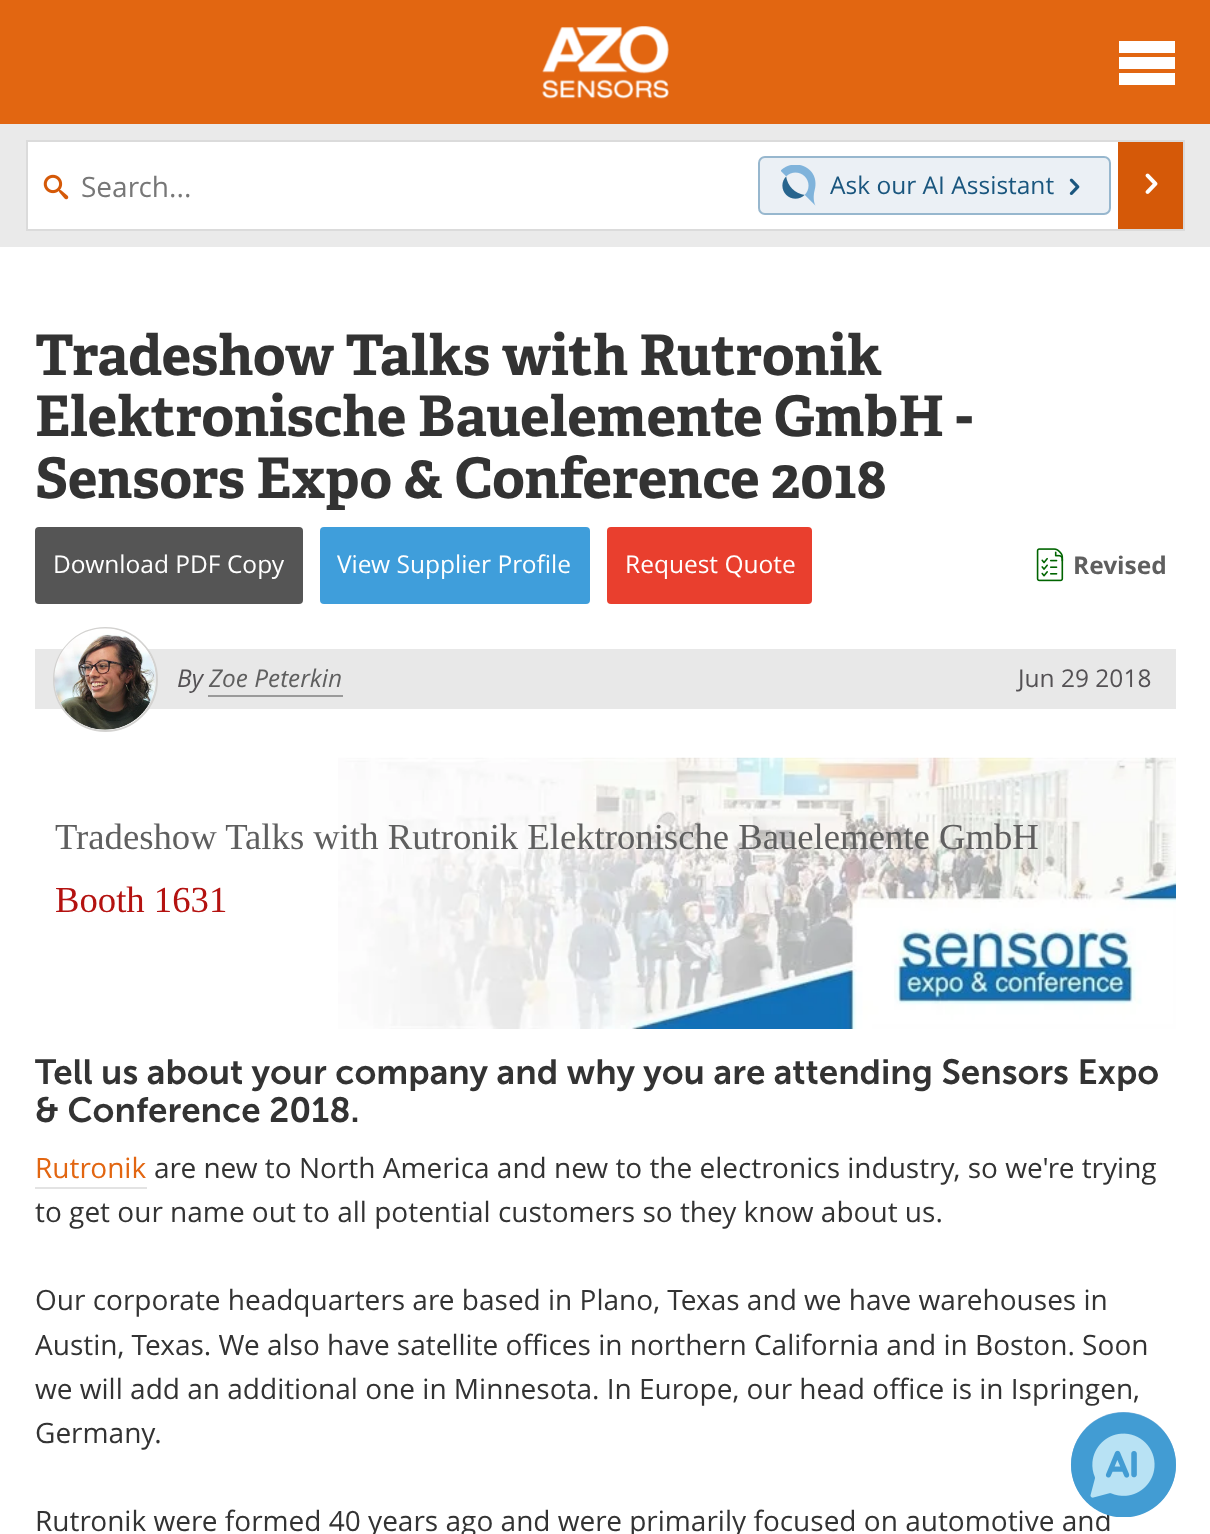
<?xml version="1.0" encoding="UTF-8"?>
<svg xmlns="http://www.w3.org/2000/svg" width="1210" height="1534">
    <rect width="100%" height="100%" fill="#FFFFFF"/>
    <rect x="0" y="124" width="1210" height="123" fill="#EAEAEA"/>
    <rect x="0" y="0" width="1210" height="124" fill="#E26611"/>
    <image x="542" y="26" width="127" height="73" href="img_01.png"/>
    <path d="M 1119 41 H 1175 V 53 H 1119 Z M 1119 57 H 1175 V 69 H 1119 Z M 1119 73 H 1175 V 85 H 1119 Z" fill="#FFFFFF"/>
    <rect x="28" y="142" width="1090" height="87" fill="#FFFFFF"/>
    <rect x="27" y="141" width="1157" height="89" fill="none" stroke="#DBDBDB" stroke-width="2"/>
    <image x="43" y="174" width="26" height="26" href="img_02.png"/>
    <text x="81" y="197" font-family="Open Sans" font-size="28" fill="#777777">Search...</text>
    <rect x="759" y="157" width="351" height="57" rx="6" fill="#EBF0F5" stroke="#97B7CE" stroke-width="2"/>
    <image x="781" y="165" width="35" height="41" href="img_03.png"/>
    <text x="830" y="194" font-family="Open Sans" font-size="24.5" fill="#1A567E">Ask our AI Assistant</text>
    <image x="1069" y="178" width="11" height="17" href="img_04.png"/>
    <rect x="1118" y="142" width="65" height="87" fill="#D55908"/>
    <image x="1145" y="173" width="13" height="21" href="img_05.png"/>
    <text font-family="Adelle" font-size="56" font-weight="700" fill="#333333">
        <tspan x="35" y="375">Tradeshow Talks with Rutronik</tspan>
        <tspan x="35" y="436">Elektronische Bauelemente GmbH -</tspan>
        <tspan x="35" y="498">Sensors Expo &amp; Conference 2018</tspan>
    </text>
    <rect x="35" y="527" width="268" height="77" rx="4" fill="#555555"/>
    <text x="53" y="573" font-family="Open Sans" font-size="24.5" fill="#FFFFFF">Download PDF Copy</text>
    <rect x="320" y="527" width="270" height="77" rx="4" fill="#3F9EDB"/>
    <text x="337" y="573" font-family="Open Sans" font-size="24.5" fill="#FFFFFF">View Supplier Profile</text>
    <rect x="607" y="527" width="205" height="77" rx="4" fill="#E93F2E"/>
    <text x="625" y="573" font-family="Open Sans" font-size="24.5" fill="#FFFFFF">Request Quote</text>
    <image x="1036" y="548" width="28" height="34" href="img_06.png"/>
    <text x="1073" y="574" font-family="Open Sans" font-size="24.5" font-weight="700" fill="#5F5F5F">Revised</text>
    <rect x="35" y="649" width="1141" height="60" fill="#E8E8E8"/>
    <circle cx="105.5" cy="679.5" r="51.5" fill="none" stroke="#D3D2D0" stroke-width="2"/>
    <image x="54" y="628" width="102" height="102" href="img_07.png"/>
    <text x="177" y="687" font-family="Open Sans" font-size="24.5" font-style="italic" fill="#545154">By</text>
    <text x="209" y="687" font-family="Open Sans" font-size="24.5" font-style="italic" fill="#5F5F5F">Zoe Peterkin</text>
    <rect x="208" y="695" width="135" height="2" fill="#9A9A9A"/>
    <text x="1018" y="687" font-family="Open Sans" font-size="24.5" fill="#545154">Jun 29 2018</text>
    <image x="338" y="757" width="838" height="272" href="img_08.png"/>
    <text x="55" y="849" font-family="Liberation Serif" font-size="36.7" fill="#5F5F5F">Tradeshow Talks with Rutronik Elektronische Bauelemente GmbH</text>
    <text x="55" y="912" font-family="Liberation Serif" font-size="36.7" fill="#B41210">Booth 1631</text>
    <text font-family="'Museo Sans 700'" font-size="35" font-weight="600" fill="#333333">
        <tspan x="35" y="1084">Tell us about your company and why you are attending Sensors Expo</tspan>
        <tspan x="35" y="1122">&amp; Conference 2018.</tspan>
    </text>
    <text x="35" y="1178" font-family="Open Sans" font-size="28" fill="#E26611">Rutronik</text>
    <rect x="35" y="1187" width="112" height="2" fill="#E3E3E3"/>
    <text x="154" y="1178" font-family="Open Sans" font-size="28" fill="#333333">are new to North America and new to the electronics industry, so we're trying</text>
    <text x="35" y="1222" font-family="Open Sans" font-size="28" fill="#333333">to get our name out to all potential customers so they know about us.</text>
    <text font-family="Open Sans" font-size="28" fill="#333333">
        <tspan x="35" y="1310">Our corporate headquarters are based in Plano, Texas and we have warehouses in</tspan>
        <tspan x="35" y="1355">Austin, Texas. We also have satellite offices in northern California and in Boston. Soon</tspan>
        <tspan x="35" y="1399">we will add an additional one in Minnesota. In Europe, our head office is in Ispringen,</tspan>
        <tspan x="35" y="1443">Germany.</tspan>
    </text>
    <text x="35" y="1531" font-family="Open Sans" font-size="28" fill="#333333">Rutronik were formed 40 years ago and were primarily focused on automotive and</text>
    <circle cx="1123.5" cy="1464.5" r="52.5" fill="#7FB3DB"/>
    <image x="1071" y="1412" width="105" height="105" href="img_09.png"/>
</svg>
